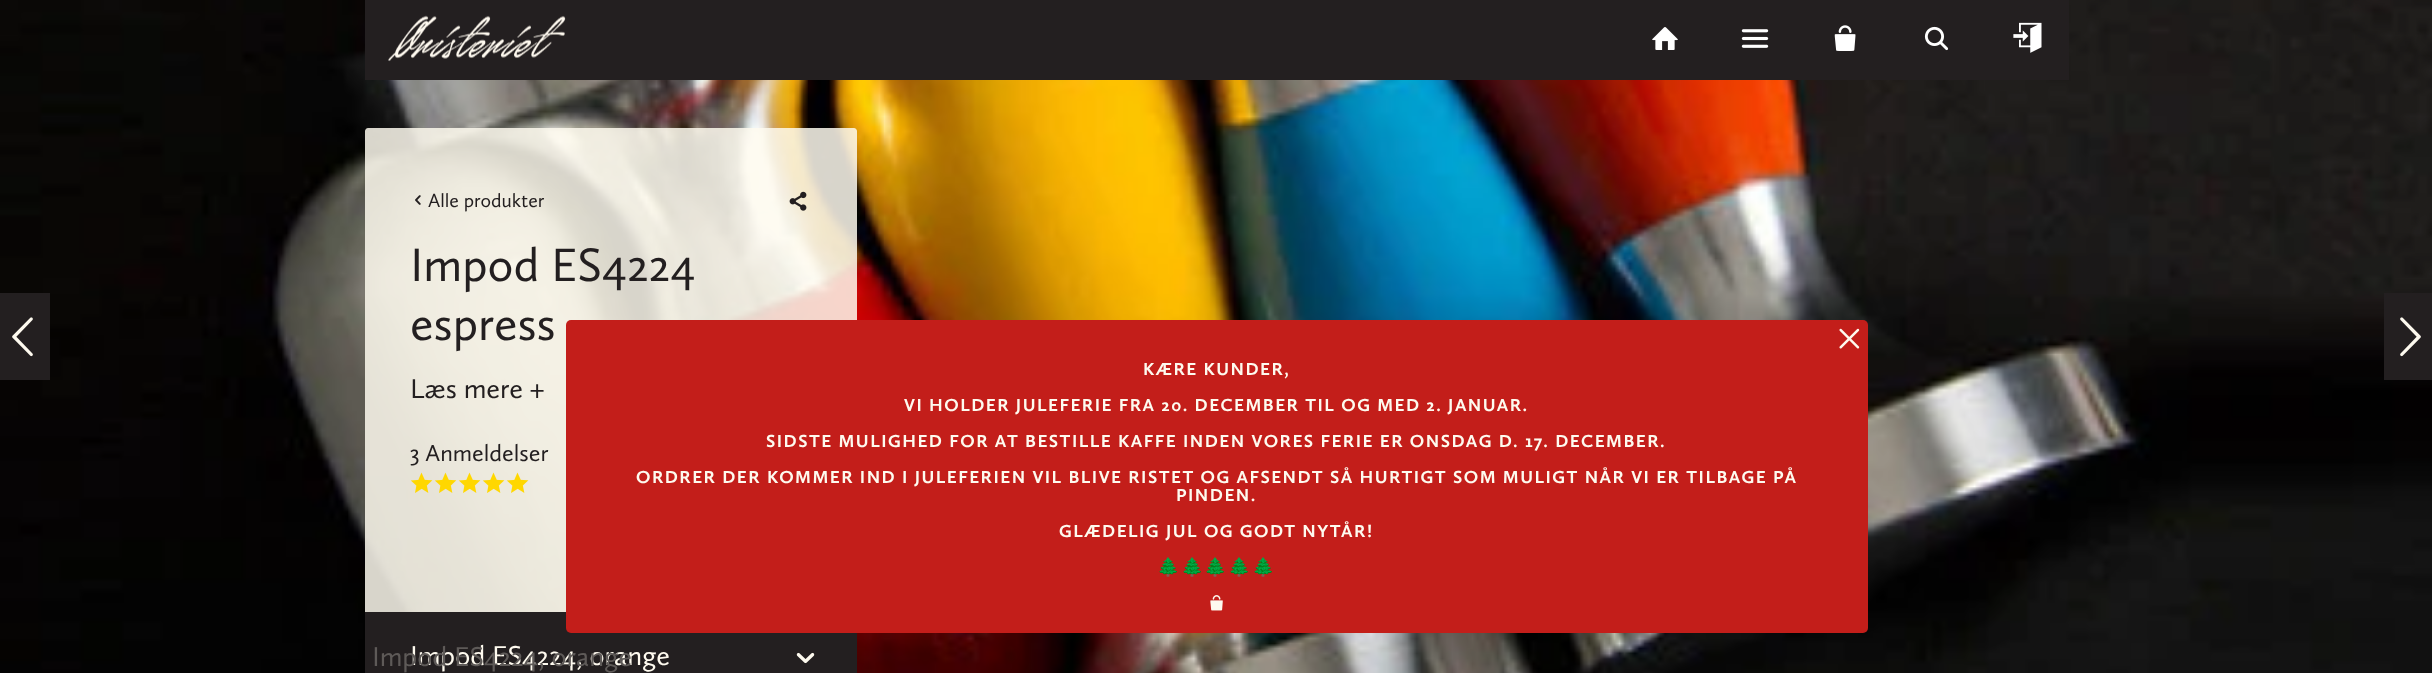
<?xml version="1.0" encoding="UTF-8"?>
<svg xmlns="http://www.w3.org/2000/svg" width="2432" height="673">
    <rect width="100%" height="100%" fill="#FFFFFF"/>
    <image x="0" y="0" width="2432" height="673" href="img_01.png"/>
    <rect x="365" y="0" width="1704" height="80" fill="#231F20"/>
    <image x="388" y="15" width="178" height="47" href="img_02.png"/>
    <image x="1652" y="27" width="26" height="23" href="img_03.png"/>
    <image x="1741" y="29" width="28" height="19" href="img_04.png"/>
    <image x="1834" y="25" width="22" height="26" href="img_05.png"/>
    <image x="1924" y="26" width="25" height="25" href="img_06.png"/>
    <image x="2013" y="22" width="29" height="31" href="img_07.png"/>
    <path d="M 368 128 H 854 C 855.5 128 857 129.5 857 131 V 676 H 365 V 131 C 365 129.5 366.5 128 368 128 Z" fill="#FEFAEF" fill-opacity="0.85"/>
    <image x="415" y="195" width="6" height="10" href="img_08.png"/>
    <text x="428" y="207" font-family="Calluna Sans" font-size="19.75" fill="#231F20">Alle produkter</text>
    <image x="789" y="191" width="18" height="20" href="img_09.png"/>
    <text font-family="Calluna Sans" font-size="48.5" fill="#231F20">
        <tspan x="410" y="281">Impod ES4224</tspan>
        <tspan x="410" y="340">espress</tspan>
    </text>
    <text x="410" y="398" font-family="Calluna Sans" font-size="28.25" fill="#231F20">Læs mere +</text>
    <text x="410" y="461" font-family="Calluna Sans" font-size="24" fill="#231F20">3 Anmeldelser</text>
    <image x="410" y="472" width="23" height="21" href="img_10.png"/>
    <image x="434" y="472" width="23" height="21" href="img_11.png"/>
    <image x="458" y="472" width="23" height="21" href="img_12.png"/>
    <image x="482" y="472" width="23" height="21" href="img_13.png"/>
    <image x="506" y="472" width="23" height="21" href="img_14.png"/>
    <path d="M 365 612 V 614 H 856 V 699 H 857 V 612 Z" fill="#231F20"/>
    <rect x="365" y="614" width="491" height="59" fill="#231F20"/>
    <text x="410" y="665" font-family="Calluna Sans" font-size="28.25" fill="#FEFAEF">Impod ES4224, orange</text>
    <text x="372" y="666" font-family="Calluna Sans" font-size="28.25" fill="#5E5A58">Impod ES4224, orange</text>
    <image x="796" y="652" width="19" height="12" href="img_15.png"/>
    <rect x="0" y="293" width="50" height="87" fill="#231F20"/>
    <image x="12" y="317" width="21" height="40" href="img_16.png"/>
    <rect x="2384" y="293" width="48" height="87" fill="#231F20"/>
    <image x="2400" y="317" width="21" height="40" href="img_17.png"/>
    <rect x="566" y="320" width="1302" height="313" rx="5" fill="#C31E1A"/>
    <image x="1839" y="328" width="21" height="21" href="img_18.png"/>
    <text x="1143" y="375" font-family="Calluna Sans" font-size="18" font-weight="700" letter-spacing="1.5" fill="#FEFAEF">KÆRE KUNDER,</text>
    <text x="904" y="411" font-family="Calluna Sans" font-size="18" font-weight="700" letter-spacing="1.5" fill="#FEFAEF">VI HOLDER JULEFERIE FRA 20. DECEMBER TIL OG MED 2. JANUAR.</text>
    <text x="766" y="447" font-family="Calluna Sans" font-size="18" font-weight="700" letter-spacing="1.5" fill="#FEFAEF">SIDSTE MULIGHED FOR AT BESTILLE KAFFE INDEN VORES FERIE ER ONSDAG D. 17. DECEMBER.</text>
    <text x="636" y="483" font-family="Calluna Sans" font-size="18" font-weight="700" letter-spacing="1.5" fill="#FEFAEF">ORDRER DER KOMMER IND I JULEFERIEN VIL BLIVE RISTET OG AFSENDT SÅ HURTIGT SOM MULIGT NÅR VI ER TILBAGE PÅ</text>
    <text x="1176" y="501" font-family="Calluna Sans" font-size="18" font-weight="700" letter-spacing="1.5" fill="#FEFAEF">PINDEN.</text>
    <text x="1059" y="537" font-family="Calluna Sans" font-size="18" font-weight="700" letter-spacing="1.5" fill="#FEFAEF">GLÆDELIG JUL OG GODT NYTÅR!</text>
    <text x="1157" y="573" font-family="Noto Color Emoji" font-size="18" font-weight="700" letter-spacing="1.5" fill="#FEFAEF">🌲🌲🌲🌲🌲</text>
    <image x="1210" y="595" width="13" height="16" href="img_19.png"/>
</svg>
